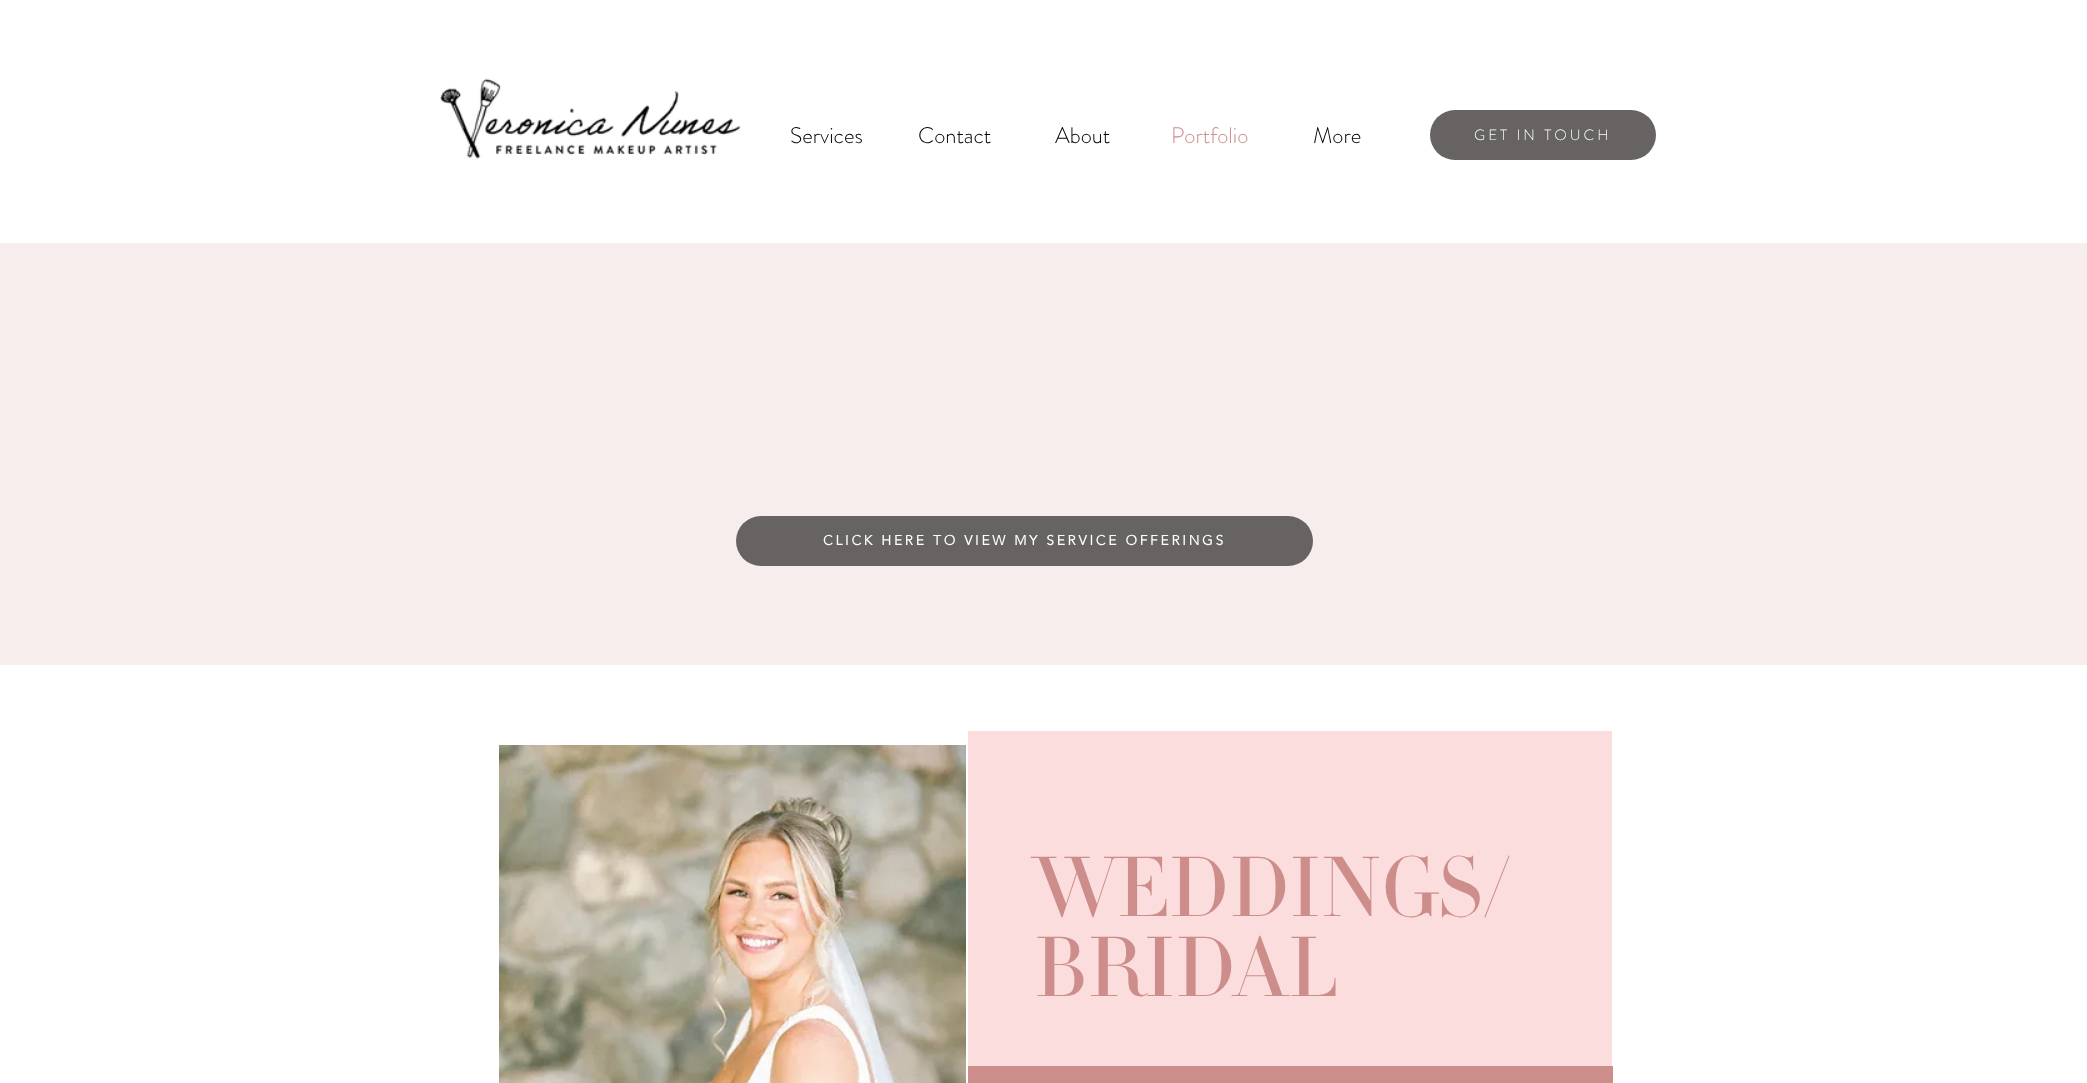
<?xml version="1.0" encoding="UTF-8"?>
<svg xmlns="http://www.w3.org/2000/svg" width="2087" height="1083">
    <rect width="100%" height="100%" fill="#FFFFFF"/>
    <image x="440" y="78" width="301" height="81" href="img_01.png"/>
    <text x="790" y="143" font-family="'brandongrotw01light'" font-size="22.5" font-weight="300" fill="#000000">Services</text>
    <text x="918" y="143" font-family="'brandongrotw01light'" font-size="22.5" font-weight="300" fill="#000000">Contact</text>
    <text x="1055" y="143" font-family="'brandongrotw01light'" font-size="22.5" font-weight="300" fill="#000000">About</text>
    <text x="1171" y="143" font-family="'brandongrotw01light'" font-size="22.5" font-weight="300" fill="#CD8E8B">Portfolio</text>
    <text x="1313" y="143" font-family="'brandongrotw01light'" font-size="22.5" font-weight="300" fill="#000000">More</text>
    <rect x="1430" y="110" width="226" height="50" rx="25" fill="#676363"/>
    <text x="1474" y="140" font-family="'brandongrotw01light'" font-size="15" font-weight="300" letter-spacing="3" fill="#FFFFFF">GET IN TOUCH</text>
    <rect x="0" y="243" width="2087" height="422" fill="#F7EDEC"/>
    <rect x="736" y="516" width="577" height="50" rx="25" fill="#676363"/>
    <text x="823" y="545" font-family="'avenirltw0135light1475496'" font-size="13.75" font-weight="700" letter-spacing="2.75" fill="#FFFFFF">CLICK HERE TO VIEW MY SERVICE OFFERINGS</text>
    <image x="499" y="745" width="467" height="338" href="img_02.png"/>
    <rect x="968" y="731" width="644" height="335" fill="#FADDDC"/>
    <text font-family="Didot" font-size="88.75" fill="#CD8E8B">
        <tspan x="1034" y="916">WEDDINGS/</tspan>
        <tspan x="1034" y="996">BRIDAL</tspan>
    </text>
    <rect x="968" y="1066" width="645" height="17" fill="#CD8E8B"/>
</svg>
